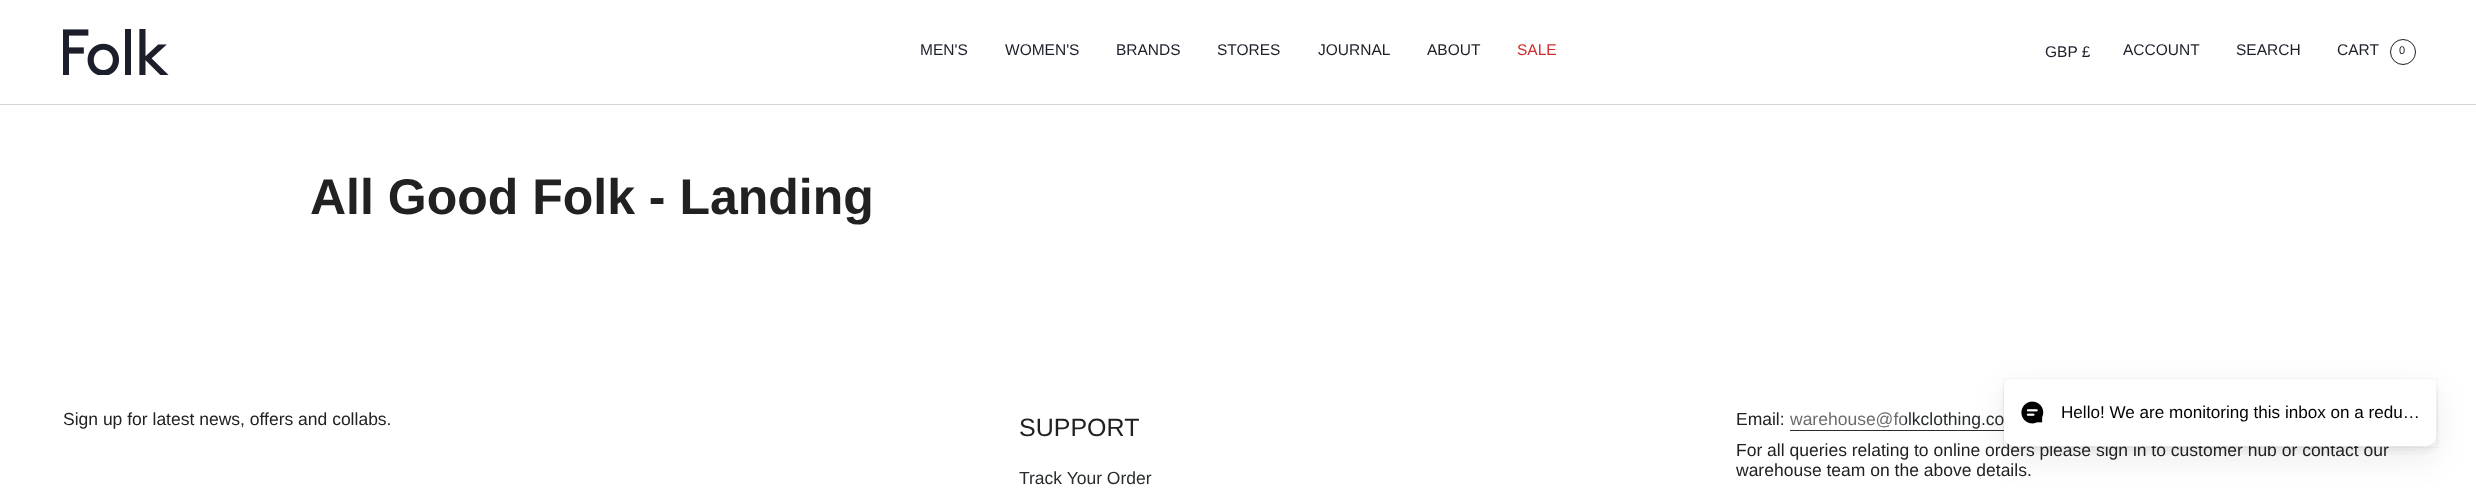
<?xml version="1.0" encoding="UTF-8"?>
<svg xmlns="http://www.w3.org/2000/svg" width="2476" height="495">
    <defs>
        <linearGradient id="g1" gradientUnits="userSpaceOnUse" x1="1790" y1="420" x2="2019" y2="420"><stop offset="0" stop-color="#696B6D"/><stop offset="0.5" stop-color="#696B6D"/><stop offset="0.5" stop-color="#282C2E"/><stop offset="1" stop-color="#282C2E"/></linearGradient>
        <filter id="blur1" x="-50%" y="-200%" width="200%" height="500%"><feGaussianBlur stdDeviation="16"/></filter>
        <filter id="blur2" x="-50%" y="-200%" width="200%" height="500%"><feGaussianBlur stdDeviation="2.5"/></filter>
    </defs>
    <rect width="100%" height="100%" fill="#FFFFFF"/>
    <image x="63" y="29" width="106" height="46" href="img_01.png"/>
    <text x="920" y="55" font-family="Liberation Sans" font-size="15.5" fill="#1D1F2A">MEN'S</text>
    <text x="1005" y="55" font-family="Liberation Sans" font-size="15.5" fill="#1D1F2A">WOMEN'S</text>
    <text x="1116" y="55" font-family="Liberation Sans" font-size="15.5" fill="#1D1F2A">BRANDS</text>
    <text x="1217" y="55" font-family="Liberation Sans" font-size="15.5" fill="#1D1F2A">STORES</text>
    <text x="1318" y="55" font-family="Liberation Sans" font-size="15.5" fill="#1D1F2A">JOURNAL</text>
    <text x="1427" y="55" font-family="Liberation Sans" font-size="15.5" fill="#1D1F2A">ABOUT</text>
    <text x="1517" y="55" font-family="Liberation Sans" font-size="15.5" fill="#D02E2E">SALE</text>
    <text x="2045" y="57" font-family="Liberation Sans" font-size="15.5" fill="#1D1F2A">GBP £</text>
    <text x="2123" y="55" font-family="Liberation Sans" font-size="15.5" fill="#1D1F2A">ACCOUNT</text>
    <text x="2236" y="55" font-family="Liberation Sans" font-size="15.5" fill="#1D1F2A">SEARCH</text>
    <text x="2337" y="55" font-family="Liberation Sans" font-size="15.5" fill="#1D1F2A">CART</text>
    <circle cx="2403" cy="52" r="12.5" fill="none" stroke="#1D1F2A"/>
    <text x="2399" y="54" font-family="Liberation Sans" font-size="11" fill="#1D1F2A">0</text>
    <rect x="0" y="104" width="2476" height="1" fill="#D4D5D5"/>
    <text x="310" y="214" font-family="Liberation Sans" font-size="50" font-weight="700" fill="#212121">All Good Folk - Landing</text>
    <rect x="1790" y="430" width="214" height="1" fill="#282C2E"/>
    <rect x="2004" y="389" width="432" height="69" rx="10" fill="#373F47" fill-opacity="0.08" filter="url(#blur1)"/>
    <rect x="2004" y="384" width="432" height="69" rx="10" fill="#373F47" fill-opacity="0.08" filter="url(#blur2)"/>
    <text x="1790" y="425" font-family="Liberation Sans" font-size="17.5" fill="url(#g1)">warehouse@folkclothing.co</text>
    <text x="1736" y="456" font-family="Liberation Sans" font-size="17.5" fill="#212121">For all queries relating to online orders please sign in to customer hub or contact our</text>
    <rect x="2003.5" y="378.5" width="434" height="69" fill="none" stroke="#373F47" stroke-opacity="0.04"/>
    <rect x="2004" y="379" width="432" height="67" rx="10" fill="#FFFFFF"/>
    <image x="2021" y="401" width="23" height="23" href="img_02.png"/>
    <text x="2061" y="418" font-family="Liberation Sans" font-size="17.1" fill="#000000">Hello! We are monitoring this inbox on a redu…</text>
    <text x="63" y="425" font-family="Liberation Sans" font-size="17.5" fill="#212121">Sign up for latest news, offers and collabs.</text>
    <text x="1019" y="436" font-family="Liberation Sans" font-size="25" fill="#212121">SUPPORT</text>
    <text x="1019" y="484" font-family="Liberation Sans" font-size="17.5" fill="#282C2E">Track Your Order</text>
    <text x="1736" y="425" font-family="Liberation Sans" font-size="17.5" fill="#212121">Email:</text>
    <text x="1736" y="476" font-family="Liberation Sans" font-size="17.5" fill="#212121">warehouse team on the above details.</text>
</svg>
